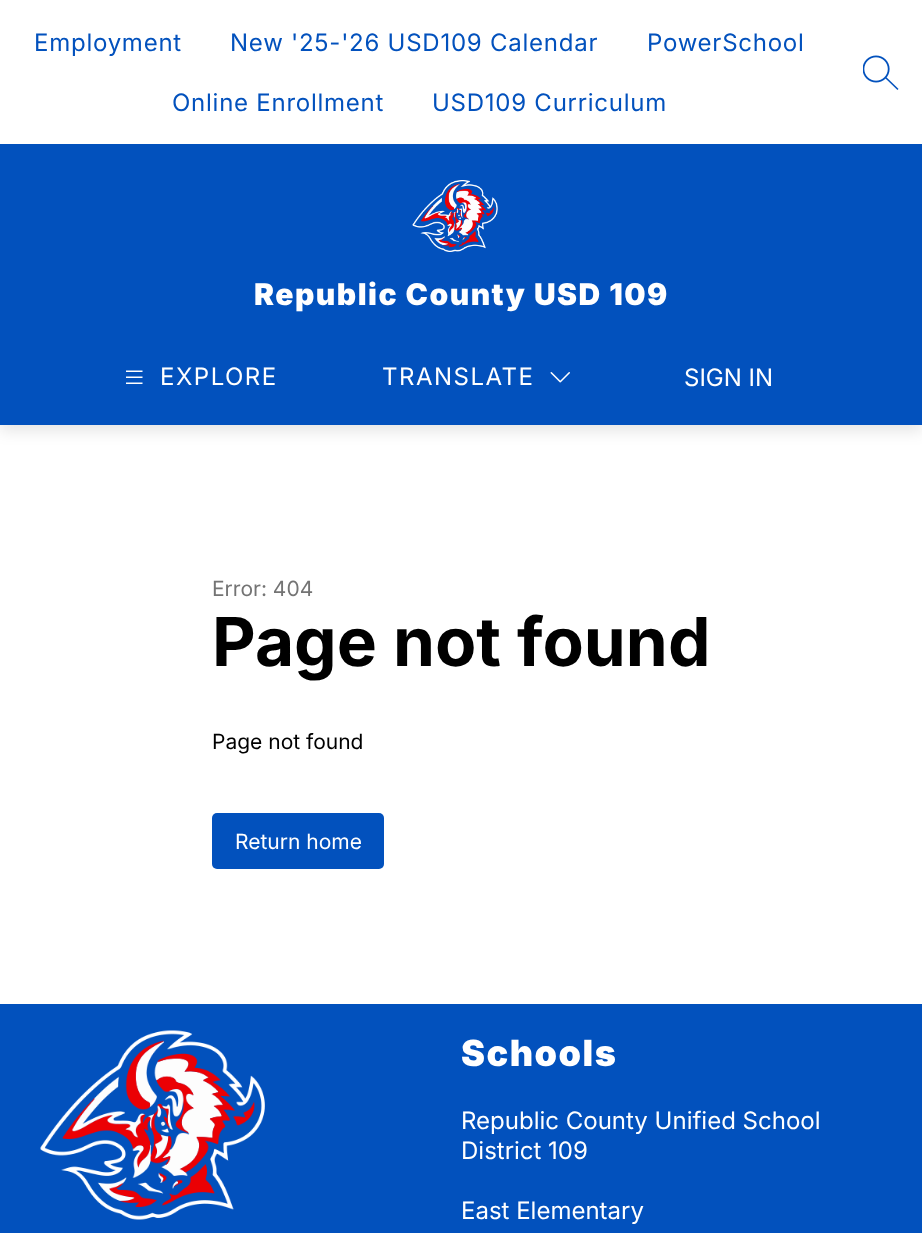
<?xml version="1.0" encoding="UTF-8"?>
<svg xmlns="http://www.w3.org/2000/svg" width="922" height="1233">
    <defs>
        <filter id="blur1" x="-50%" y="-200%" width="200%" height="500%"><feGaussianBlur stdDeviation="7.5"/></filter>
    </defs>
    <rect width="100%" height="100%" fill="#FFFFFF"/>
    <rect x="0" y="6" width="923" height="425" fill="#000000" fill-opacity="0.1" filter="url(#blur1)"/>
    <rect x="0" y="144" width="922" height="281" fill="#0251BD"/>
    <rect x="0" y="0" width="922" height="144" fill="#FFFFFF"/>
    <text x="34" y="51" font-family="Inter" font-size="24" letter-spacing="0.75" fill="#0251BD">Employment</text>
    <text x="230" y="51" font-family="Inter" font-size="24" letter-spacing="0.75" fill="#0251BD">New '25-'26 USD109 Calendar</text>
    <text x="647" y="51" font-family="Inter" font-size="24" letter-spacing="0.75" fill="#0251BD">PowerSchool</text>
    <text x="172" y="111" font-family="Inter" font-size="24" letter-spacing="0.75" fill="#0251BD">Online Enrollment</text>
    <text x="432" y="111" font-family="Inter" font-size="24" letter-spacing="0.75" fill="#0251BD">USD109 Curriculum</text>
    <image x="863" y="55" width="36" height="35" href="img_01.png"/>
    <image x="412" y="180" width="86" height="72" href="img_02.png"/>
    <text x="254" y="305" font-family="Inter" font-size="30" font-weight="900" letter-spacing="1.5" fill="#FFFFFF">Republic County USD 109</text>
    <image x="126" y="370" width="17" height="14" href="img_03.png"/>
    <text x="160" y="385" font-family="Inter" font-size="24" letter-spacing="1.5" fill="#FFFFFF">EXPLORE</text>
    <text x="382" y="385" font-family="Inter" font-size="24" letter-spacing="1.5" fill="#FFFFFF">TRANSLATE</text>
    <image x="550" y="372" width="20" height="11" href="img_04.png"/>
    <text x="684" y="386" font-family="Inter" font-size="24" fill="#FFFFFF">SIGN IN</text>
    <text x="212" y="596" font-family="Inter" font-size="21" fill="#747474">Error: 404</text>
    <text x="212" y="666" font-family="Inter" font-size="67.5" font-weight="700" fill="#000000">Page not found</text>
    <text x="212" y="749" font-family="Inter" font-size="21" fill="#000000">Page not found</text>
    <rect x="212" y="813" width="172" height="56" rx="5" fill="#0251BD"/>
    <text x="235" y="849" font-family="Inter" font-size="21" fill="#FFFFFF">Return home</text>
    <rect x="0" y="1004" width="922" height="229" fill="#0251BD"/>
    <image x="40" y="1030" width="225" height="190" href="img_05.png"/>
    <text x="461" y="1066" font-family="Inter" font-size="36" font-weight="900" letter-spacing="1.5" fill="#FFFFFF">Schools</text>
    <text font-family="Inter" font-size="24" fill="#FFFFFF">
        <tspan x="461" y="1129">Republic County Unified School</tspan>
        <tspan x="461" y="1159">District 109</tspan>
    </text>
    <text x="461" y="1219" font-family="Inter" font-size="24" fill="#FFFFFF">East Elementary</text>
</svg>
